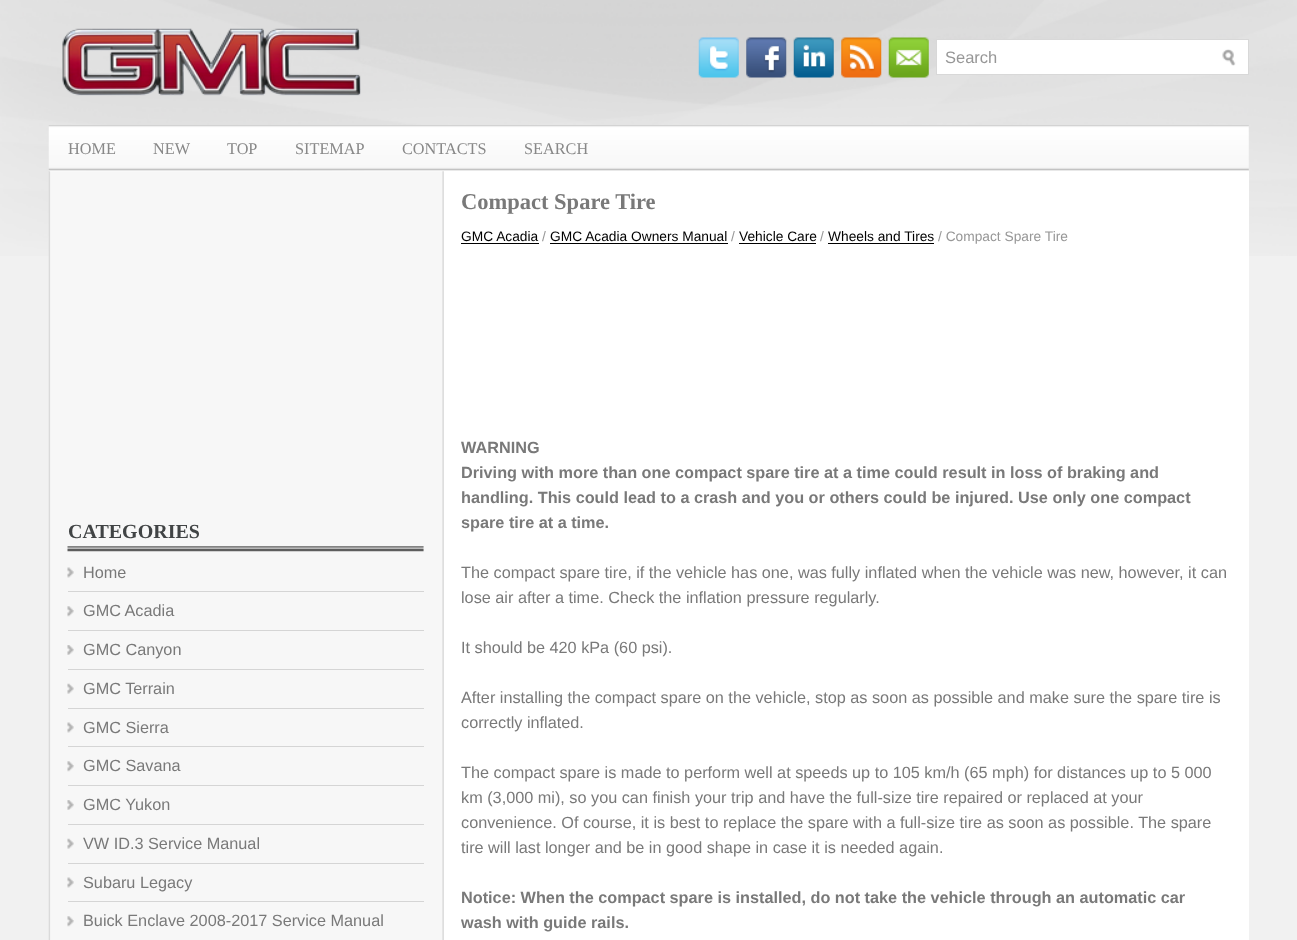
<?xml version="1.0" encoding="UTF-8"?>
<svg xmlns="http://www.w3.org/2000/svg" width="1297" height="940">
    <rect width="100%" height="100%" fill="#F1F1F1"/>
    <image x="0" y="0" width="1297" height="256" href="img_01.png"/>
    <image x="62" y="28" width="299" height="68" href="img_02.png"/>
    <image x="698" y="37" width="41" height="41" href="img_03.png"/>
    <image x="746" y="37" width="41" height="41" href="img_04.png"/>
    <image x="793" y="37" width="41" height="41" href="img_05.png"/>
    <image x="841" y="37" width="41" height="41" href="img_06.png"/>
    <image x="888" y="37" width="41" height="41" href="img_07.png"/>
    <rect x="936.5" y="39.5" width="312" height="35" fill="#FFFFFF" stroke="#D8D8D8"/>
    <text x="945" y="63" font-family="Liberation Sans" font-size="16.5" fill="#979797">Search</text>
    <image x="1222" y="49" width="14" height="17" href="img_08.png"/>
    <image x="48" y="125" width="1201" height="45" href="img_09.png"/>
    <text x="68" y="154" font-family="Liberation Serif" font-size="16.25" fill="#888888">HOME</text>
    <text x="153" y="154" font-family="Liberation Serif" font-size="16.25" fill="#888888">NEW</text>
    <text x="227" y="154" font-family="Liberation Serif" font-size="16.25" fill="#888888">TOP</text>
    <text x="295" y="154" font-family="Liberation Serif" font-size="16.25" fill="#888888">SITEMAP</text>
    <text x="402" y="154" font-family="Liberation Serif" font-size="16.25" fill="#888888">CONTACTS</text>
    <text x="524" y="154" font-family="Liberation Serif" font-size="16.25" fill="#888888">SEARCH</text>
    <rect x="49" y="171" width="1200" height="769" fill="#FFFFFF"/>
    <image x="48" y="171" width="396" height="769" href="img_10.png"/>
    <image x="67" y="546" width="357" height="6" href="img_11.png"/>
    <text x="68" y="538" font-family="Liberation Serif" font-size="20" font-weight="700" fill="#414445">CATEGORIES</text>
    <image x="67" y="567" width="7" height="11" href="img_12.png"/>
    <rect x="68" y="591" width="356" height="1" fill="#D5D5D5"/>
    <text x="83" y="578" font-family="Liberation Sans" font-size="16.25" fill="#797979">Home</text>
    <image x="67" y="606" width="7" height="11" href="img_13.png"/>
    <rect x="68" y="630" width="356" height="1" fill="#D5D5D5"/>
    <text x="83" y="616" font-family="Liberation Sans" font-size="16.25" fill="#797979">GMC Acadia</text>
    <image x="67" y="645" width="7" height="10" href="img_14.png"/>
    <rect x="68" y="669" width="356" height="1" fill="#D5D5D5"/>
    <text x="83" y="655" font-family="Liberation Sans" font-size="16.25" fill="#797979">GMC Canyon</text>
    <image x="67" y="683" width="7" height="11" href="img_15.png"/>
    <rect x="68" y="708" width="356" height="1" fill="#D5D5D5"/>
    <text x="83" y="694" font-family="Liberation Sans" font-size="16.25" fill="#797979">GMC Terrain</text>
    <image x="67" y="722" width="7" height="11" href="img_12.png"/>
    <rect x="68" y="746" width="356" height="1" fill="#D5D5D5"/>
    <text x="83" y="733" font-family="Liberation Sans" font-size="16.25" fill="#797979">GMC Sierra</text>
    <image x="67" y="761" width="7" height="11" href="img_13.png"/>
    <rect x="68" y="785" width="356" height="1" fill="#D5D5D5"/>
    <text x="83" y="771" font-family="Liberation Sans" font-size="16.25" fill="#797979">GMC Savana</text>
    <image x="67" y="800" width="7" height="10" href="img_14.png"/>
    <rect x="68" y="824" width="356" height="1" fill="#D5D5D5"/>
    <text x="83" y="810" font-family="Liberation Sans" font-size="16.25" fill="#797979">GMC Yukon</text>
    <image x="67" y="838" width="7" height="11" href="img_15.png"/>
    <rect x="68" y="863" width="356" height="1" fill="#D5D5D5"/>
    <text x="83" y="849" font-family="Liberation Sans" font-size="16.25" fill="#797979">VW ID.3 Service Manual</text>
    <image x="67" y="877" width="7" height="11" href="img_12.png"/>
    <rect x="68" y="901" width="356" height="1" fill="#D5D5D5"/>
    <text x="83" y="888" font-family="Liberation Sans" font-size="16.25" fill="#797979">Subaru Legacy</text>
    <image x="67" y="916" width="7" height="11" href="img_13.png"/>
    <text x="83" y="926" font-family="Liberation Sans" font-size="16.25" fill="#797979">Buick Enclave 2008-2017 Service Manual</text>
    <text x="461" y="209" font-family="Liberation Serif" font-size="22.5" font-weight="700" fill="#797979">Compact Spare Tire</text>
    <text x="461" y="241" font-family="Liberation Sans" font-size="13.75" fill="#000000">GMC Acadia</text>
    <rect x="461" y="243" width="78" height="1" fill="#000000"/>
    <text x="542" y="241" font-family="Liberation Sans" font-size="13.75" fill="#979797">/</text>
    <text x="550" y="241" font-family="Liberation Sans" font-size="13.75" fill="#000000">GMC Acadia Owners Manual</text>
    <rect x="550" y="243" width="178" height="1" fill="#000000"/>
    <text x="731" y="241" font-family="Liberation Sans" font-size="13.75" fill="#979797">/</text>
    <text x="739" y="241" font-family="Liberation Sans" font-size="13.75" fill="#000000">Vehicle Care</text>
    <rect x="739" y="243" width="77" height="1" fill="#000000"/>
    <text x="820" y="241" font-family="Liberation Sans" font-size="13.75" fill="#979797">/</text>
    <text x="828" y="241" font-family="Liberation Sans" font-size="13.75" fill="#000000">Wheels and Tires</text>
    <rect x="828" y="243" width="106" height="1" fill="#000000"/>
    <text x="938" y="241" font-family="Liberation Sans" font-size="13.75" fill="#979797">/ Compact Spare Tire</text>
    <text font-family="Liberation Sans" font-size="16.25" font-weight="700" fill="#797979">
        <tspan x="461" y="453">WARNING</tspan>
        <tspan x="461" y="478">Driving with more than one compact spare tire at a time could result in loss of braking and</tspan>
        <tspan x="461" y="503">handling. This could lead to a crash and you or others could be injured. Use only one compact</tspan>
        <tspan x="461" y="528">spare tire at a time.</tspan>
    </text>
    <text font-family="Liberation Sans" font-size="16.25" fill="#797979">
        <tspan x="461" y="578">The compact spare tire, if the vehicle has one, was fully inflated when the vehicle was new, however, it can</tspan>
        <tspan x="461" y="603">lose air after a time. Check the inflation pressure regularly.</tspan>
    </text>
    <text x="461" y="653" font-family="Liberation Sans" font-size="16.25" fill="#797979">It should be 420 kPa (60 psi).</text>
    <text font-family="Liberation Sans" font-size="16.25" fill="#797979">
        <tspan x="461" y="703">After installing the compact spare on the vehicle, stop as soon as possible and make sure the spare tire is</tspan>
        <tspan x="461" y="728">correctly inflated.</tspan>
    </text>
    <text font-family="Liberation Sans" font-size="16.25" fill="#797979">
        <tspan x="461" y="778">The compact spare is made to perform well at speeds up to 105 km/h (65 mph) for distances up to 5 000</tspan>
        <tspan x="461" y="803">km (3,000 mi), so you can finish your trip and have the full-size tire repaired or replaced at your</tspan>
        <tspan x="461" y="828">convenience. Of course, it is best to replace the spare with a full-size tire as soon as possible. The spare</tspan>
        <tspan x="461" y="853">tire will last longer and be in good shape in case it is needed again.</tspan>
    </text>
    <text font-family="Liberation Sans" font-size="16.25" font-weight="700" fill="#797979">
        <tspan x="461" y="903">Notice: When the compact spare is installed, do not take the vehicle through an automatic car</tspan>
        <tspan x="461" y="928">wash with guide rails.</tspan>
    </text>
</svg>
